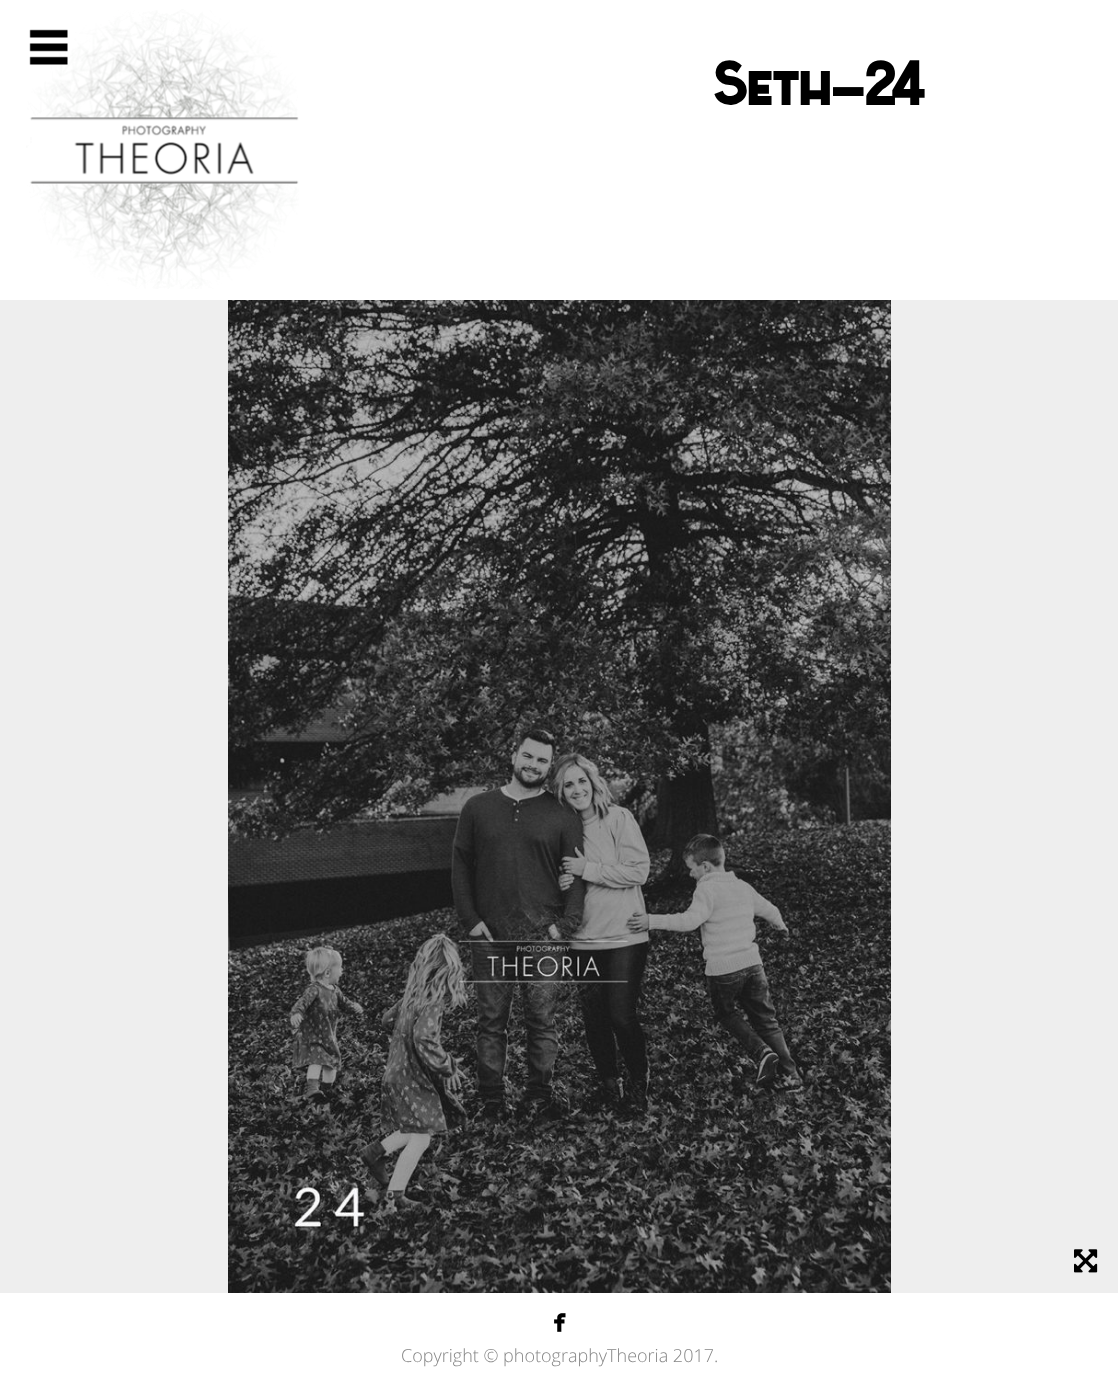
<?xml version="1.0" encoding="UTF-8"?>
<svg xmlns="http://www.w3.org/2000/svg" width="1118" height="1390">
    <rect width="100%" height="100%" fill="#EEEEEE"/>
    <rect x="0" y="0" width="1118" height="300" fill="#FFFFFF"/>
    <image x="26" y="9" width="273" height="280" href="img_01.png"/>
    <image x="29" y="29" width="39" height="36" href="img_02.png"/>
    <text x="713" y="105" font-family="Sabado" font-size="61.5" font-weight="700" fill="#000000">Seth-24</text>
    <image x="228" y="300" width="663" height="993" href="img_03.png"/>
    <image x="1074" y="1249" width="24" height="24" href="img_04.png"/>
    <rect x="0" y="1293" width="1118" height="97" fill="#FFFFFF"/>
    <image x="554" y="1313" width="12" height="19" href="img_05.png"/>
    <text x="401" y="1362" font-family="Open Sans" font-size="18" font-weight="300" fill="#868686">Copyright © photographyTheoria 2017.</text>
</svg>
